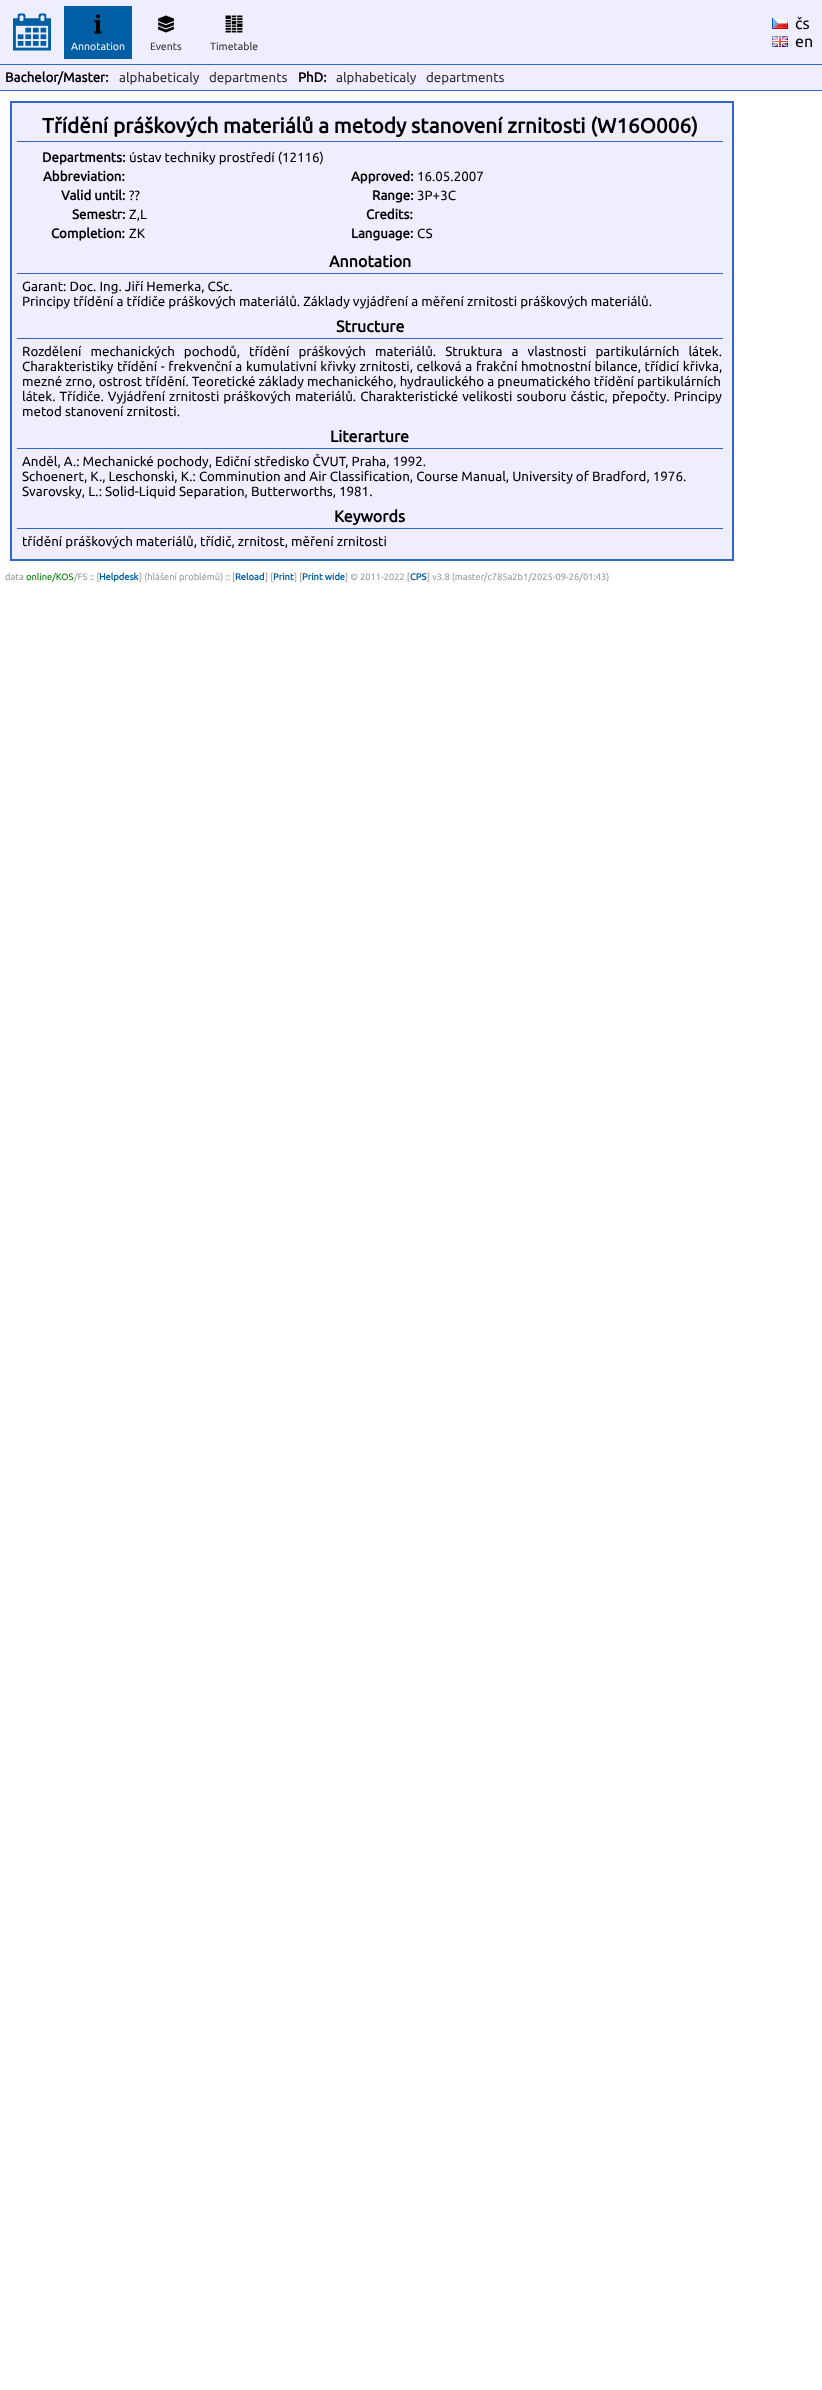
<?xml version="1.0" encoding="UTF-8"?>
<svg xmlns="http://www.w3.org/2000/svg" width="822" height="2390">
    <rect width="100%" height="100%" fill="#FFFFFF"/>
    <rect x="0" y="0" width="822" height="64" fill="#EEEEFF"/>
    <rect x="0" y="64" width="822" height="1" fill="#3366CC"/>
    <image x="13" y="13" width="38" height="38" href="img_01.png"/>
    <rect x="64" y="6" width="68" height="53" fill="#005EA5"/>
    <image x="94" y="14" width="8" height="20" href="img_02.png"/>
    <text x="71" y="50" font-family="Ubuntu" font-size="10.5" fill="#EEEEEE">Annotation</text>
    <image x="158" y="15" width="16" height="18" href="img_03.png"/>
    <text x="150" y="50" font-family="Ubuntu" font-size="10.5" fill="#333333">Events</text>
    <image x="225" y="15" width="18" height="18" href="img_04.png"/>
    <text x="210" y="50" font-family="Ubuntu" font-size="10.5" fill="#333333">Timetable</text>
    <image x="772" y="18" width="16" height="11" href="img_05.png"/>
    <text x="795" y="29" font-family="Ubuntu" font-size="16" fill="#000000">čs</text>
    <image x="772" y="36" width="16" height="11" href="img_06.png"/>
    <text x="795" y="47" font-family="Ubuntu" font-size="16" fill="#000000">en</text>
    <rect x="0" y="65" width="822" height="25" fill="#EEEEFF"/>
    <rect x="0" y="90" width="822" height="1" fill="#3366CC"/>
    <text x="5" y="82" font-family="Ubuntu" font-size="13.33" font-weight="700" fill="#000000">Bachelor/Master:</text>
    <text x="119" y="82" font-family="Ubuntu" font-size="13.33" fill="#333333">alphabeticaly</text>
    <text x="209" y="82" font-family="Ubuntu" font-size="13.33" fill="#333333">departments</text>
    <text x="298" y="82" font-family="Ubuntu" font-size="13.33" font-weight="700" fill="#000000">PhD:</text>
    <text x="336" y="82" font-family="Ubuntu" font-size="13.33" fill="#333333">alphabeticaly</text>
    <text x="426" y="82" font-family="Ubuntu" font-size="13.33" fill="#333333">departments</text>
    <rect x="11" y="102" width="722" height="458" fill="#EEEEFF" stroke="#3366CC" stroke-width="2"/>
    <rect x="17" y="141" width="706" height="1" fill="#3366CC"/>
    <text x="42" y="133" font-family="Ubuntu" font-size="20.8" font-weight="700" fill="#000000">Třídění práškových materiálů a metody stanovení zrnitosti (W16O006)</text>
    <text x="42" y="162" font-family="Ubuntu" font-size="13.33" font-weight="700" fill="#000000">Departments:</text>
    <text x="129" y="162" font-family="Ubuntu" font-size="13.33" fill="#000000">ústav techniky prostředí (12116)</text>
    <text x="43" y="181" font-family="Ubuntu" font-size="13.33" font-weight="700" fill="#000000">Abbreviation:</text>
    <text x="351" y="181" font-family="Ubuntu" font-size="13.33" font-weight="700" fill="#000000">Approved:</text>
    <text x="417" y="181" font-family="Ubuntu" font-size="13.33" fill="#000000">16.05.2007</text>
    <text x="61" y="200" font-family="Ubuntu" font-size="13.33" font-weight="700" fill="#000000">Valid until:</text>
    <text x="129" y="200" font-family="Ubuntu" font-size="13.33" fill="#000000">??</text>
    <text x="372" y="200" font-family="Ubuntu" font-size="13.33" font-weight="700" fill="#000000">Range:</text>
    <text x="417" y="200" font-family="Ubuntu" font-size="13.33" fill="#000000">3P+3C</text>
    <text x="72" y="219" font-family="Ubuntu" font-size="13.33" font-weight="700" fill="#000000">Semestr:</text>
    <text x="129" y="219" font-family="Ubuntu" font-size="13.33" fill="#000000">Z,L</text>
    <text x="366" y="219" font-family="Ubuntu" font-size="13.33" font-weight="700" fill="#000000">Credits:</text>
    <text x="51" y="238" font-family="Ubuntu" font-size="13.33" font-weight="700" fill="#000000">Completion:</text>
    <text x="129" y="238" font-family="Ubuntu" font-size="13.33" fill="#000000">ZK</text>
    <text x="351" y="238" font-family="Ubuntu" font-size="13.33" font-weight="700" fill="#000000">Language:</text>
    <text x="417" y="238" font-family="Ubuntu" font-size="13.33" fill="#000000">CS</text>
    <rect x="17" y="273" width="706" height="1" fill="#3366CC"/>
    <text x="329" y="267" font-family="Ubuntu" font-size="16" font-weight="700" fill="#000000">Annotation</text>
    <text font-family="Ubuntu" font-size="13.33" fill="#000000">
        <tspan x="22" y="291">Garant: Doc. Ing. Jiří Hemerka, CSc.</tspan>
        <tspan x="22" y="306">Principy třídění a třídiče práškových materiálů. Základy vyjádření a měření zrnitosti práškových materiálů.</tspan>
    </text>
    <rect x="17" y="338" width="706" height="1" fill="#3366CC"/>
    <text x="336" y="332" font-family="Ubuntu" font-size="16" font-weight="700" fill="#000000">Structure</text>
    <text font-family="Ubuntu" font-size="13.33" fill="#000000">
        <tspan x="22" y="356" word-spacing="6">Rozdělení mechanických pochodů, třídění práškových materiálů. Struktura a vlastnosti partikulárních látek.</tspan>
        <tspan x="22" y="371" word-spacing="0.5">Charakteristiky třídění - frekvenční a kumulativní křivky zrnitosti, celková a frakční hmotnostní bilance, třídicí křivka,</tspan>
        <tspan x="22" y="386">mezné zrno, ostrost třídění. Teoretické základy mechanického, hydraulického a pneumatického třídění partikulárních</tspan>
        <tspan x="22" y="401" word-spacing="1">látek. Třídiče. Vyjádření zrnitosti práškových materiálů. Charakteristické velikosti souboru částic, přepočty. Principy</tspan>
        <tspan x="22" y="416">metod stanovení zrnitosti.</tspan>
    </text>
    <rect x="17" y="448" width="706" height="1" fill="#3366CC"/>
    <text x="330" y="442" font-family="Ubuntu" font-size="16" font-weight="700" fill="#000000">Literarture</text>
    <text font-family="Ubuntu" font-size="13.33" fill="#000000">
        <tspan x="22" y="466">Anděl, A.: Mechanické pochody, Ediční středisko ČVUT, Praha, 1992.</tspan>
        <tspan x="22" y="481">Schoenert, K., Leschonski, K.: Comminution and Air Classification, Course Manual, University of Bradford, 1976.</tspan>
        <tspan x="22" y="496">Svarovsky, L.: Solid-Liquid Separation, Butterworths, 1981.</tspan>
    </text>
    <rect x="17" y="528" width="706" height="1" fill="#3366CC"/>
    <text x="334" y="522" font-family="Ubuntu" font-size="16" font-weight="700" fill="#000000">Keywords</text>
    <text x="22" y="546" font-family="Ubuntu" font-size="13.33" fill="#000000">třídění práškových materiálů, třídič, zrnitost, měření zrnitosti</text>
    <text x="5" y="580" font-family="Ubuntu" font-size="9.3" fill="#999999">data</text>
    <text x="26" y="580" font-family="Ubuntu" font-size="9.3" fill="#008000">online/KOS</text>
    <text x="74" y="580" font-family="Ubuntu" font-size="9.3" fill="#999999">/FS :: [</text>
    <text x="99" y="580" font-family="Ubuntu" font-size="9.3" font-weight="700" fill="#005EA5">Helpdesk</text>
    <text x="139" y="580" font-family="Ubuntu" font-size="9.3" fill="#999999">] (hlášení problémů) :: [</text>
    <text x="235" y="580" font-family="Ubuntu" font-size="9.3" font-weight="700" fill="#005EA5">Reload</text>
    <text x="265" y="580" font-family="Ubuntu" font-size="9.3" fill="#999999">] [</text>
    <text x="273" y="580" font-family="Ubuntu" font-size="9.3" font-weight="700" fill="#005EA5">Print</text>
    <text x="294" y="580" font-family="Ubuntu" font-size="9.3" fill="#999999">] [</text>
    <text x="302" y="580" font-family="Ubuntu" font-size="9.3" font-weight="700" fill="#005EA5">Print wide</text>
    <text x="345" y="580" font-family="Ubuntu" font-size="9.3" fill="#999999">] © 2011-2022 [</text>
    <text x="410" y="580" font-family="Ubuntu" font-size="9.3" font-weight="700" fill="#005EA5">CPS</text>
    <text x="427" y="580" font-family="Ubuntu" font-size="9.3" fill="#999999">] v3.8 (master/c785a2b1/2025-09-26/01:43)</text>
</svg>
